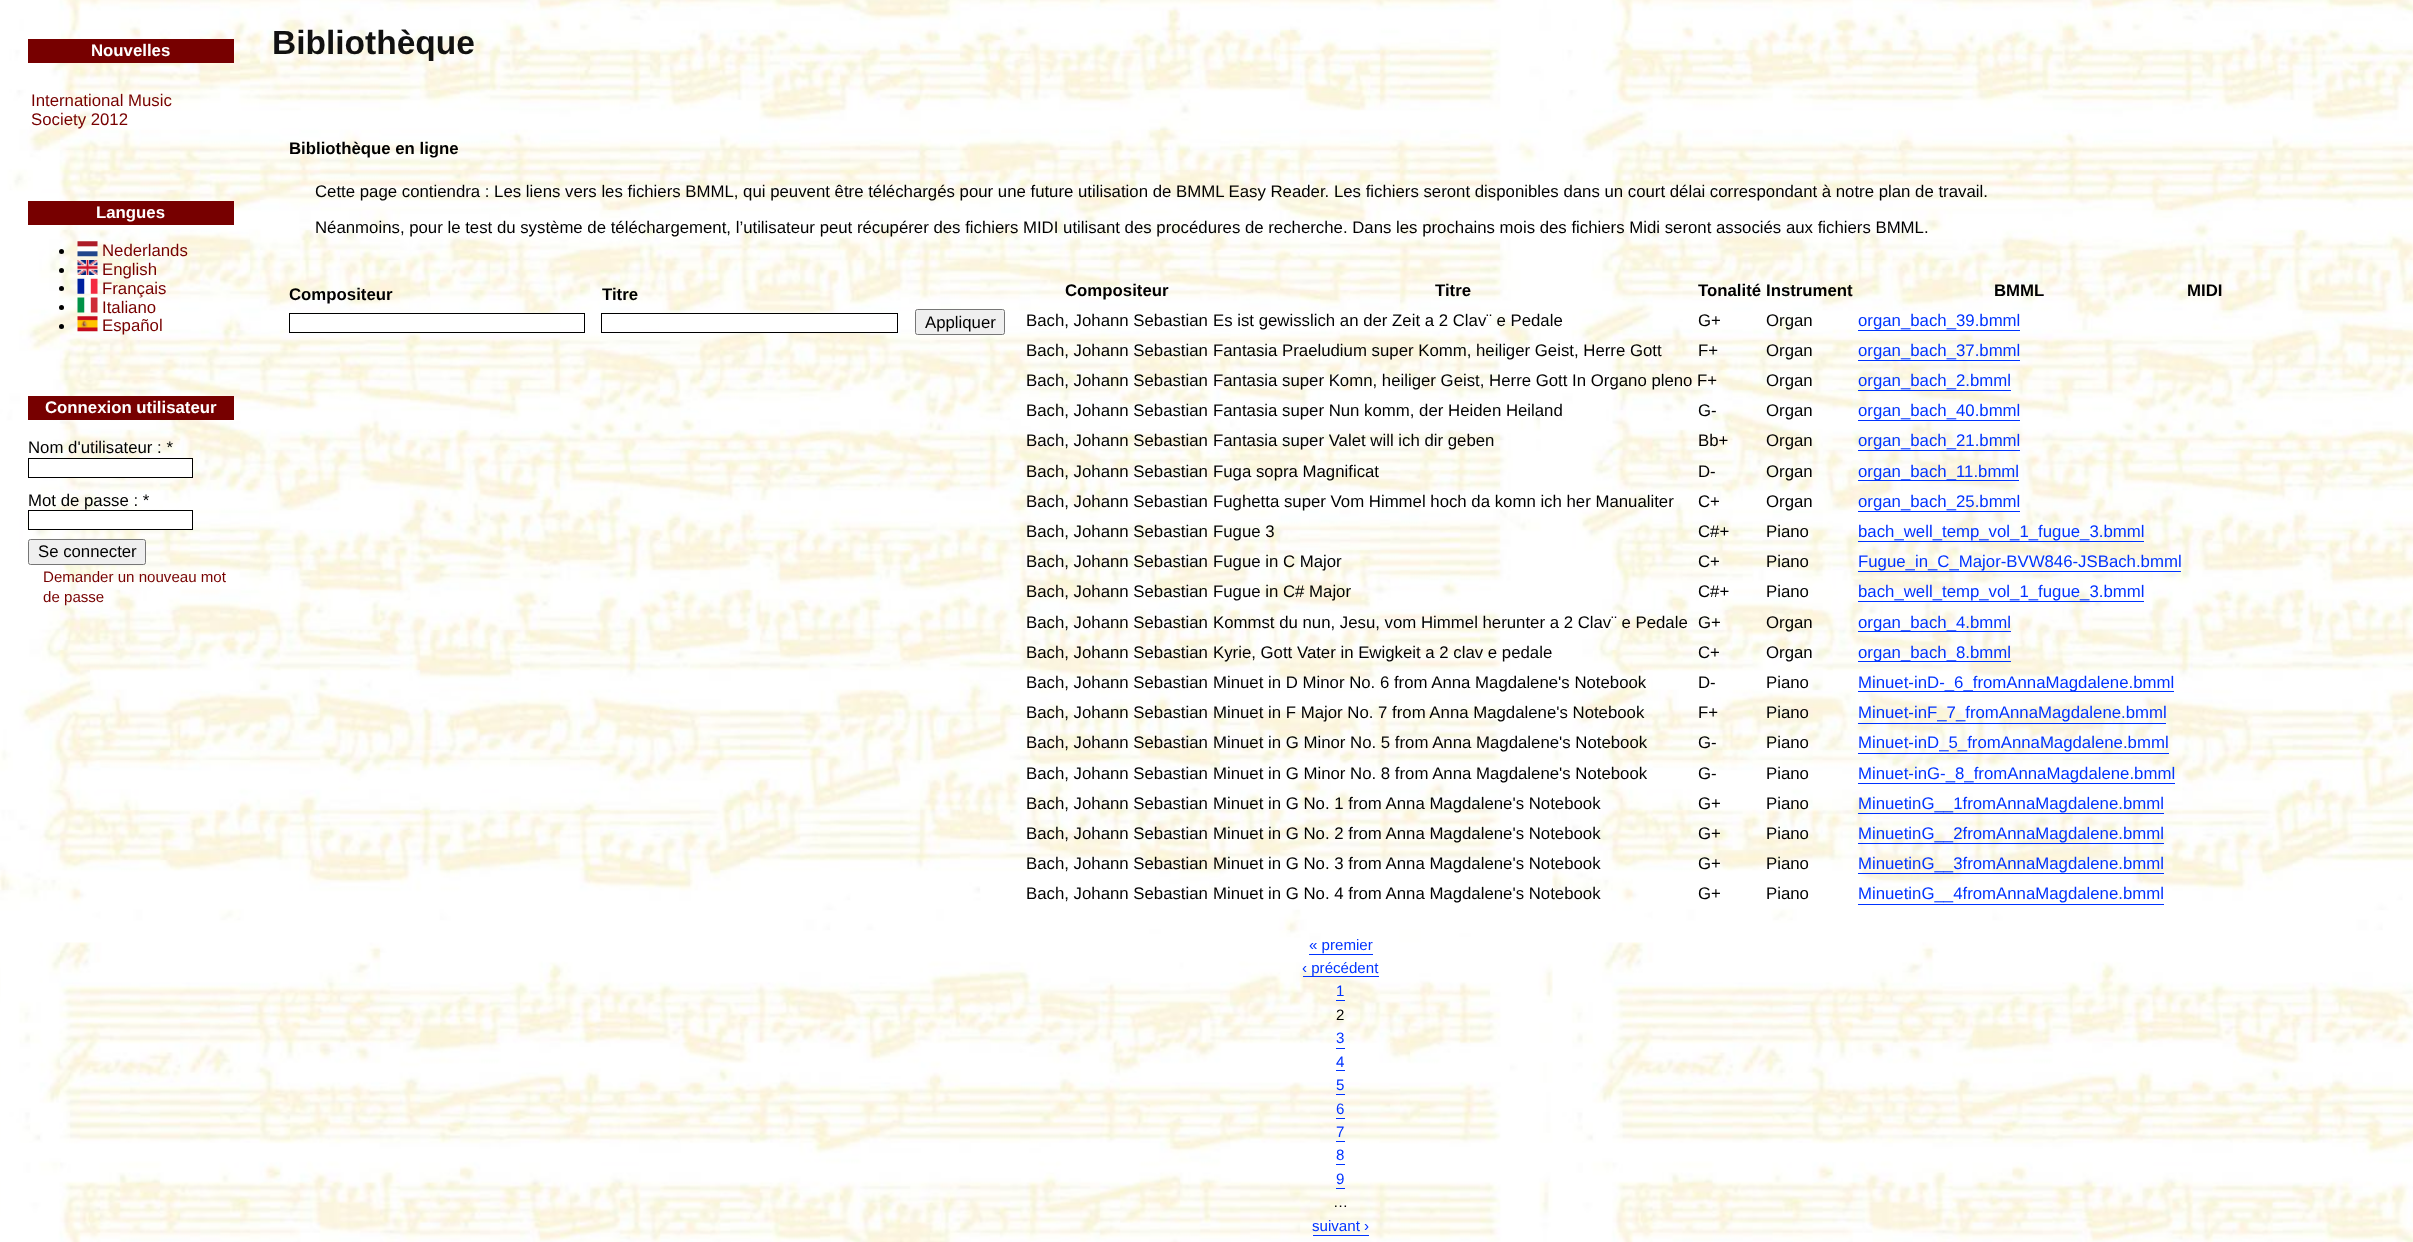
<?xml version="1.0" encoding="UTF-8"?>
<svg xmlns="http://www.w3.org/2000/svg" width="2413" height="1242">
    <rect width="100%" height="100%" fill="#FFFFFF"/>
    <image x="0" y="0" width="2413" height="1242" href="img_01.png"/>
    <rect x="28" y="39" width="206" height="24" fill="#770000"/>
    <text x="91" y="56" font-family="Liberation Sans" font-size="16.8" font-weight="700" fill="#FFFFFF">Nouvelles</text>
    <text font-family="Liberation Sans" font-size="16.8" fill="#770000">
        <tspan x="31" y="106">International Music</tspan>
        <tspan x="31" y="125">Society 2012</tspan>
    </text>
    <rect x="28" y="201" width="206" height="24" fill="#770000"/>
    <text x="96" y="218" font-family="Liberation Sans" font-size="16.8" font-weight="700" fill="#FFFFFF">Langues</text>
    <circle cx="61.5" cy="251.5" r="2.5" fill="#000000"/>
    <image x="77" y="241" width="21" height="16" href="img_02.png"/>
    <text x="102" y="256" font-family="Liberation Sans" font-size="16.8" fill="#770000">Nederlands</text>
    <circle cx="61.5" cy="270.5" r="2.5" fill="#000000"/>
    <image x="77" y="260" width="21" height="15" href="img_03.png"/>
    <text x="102" y="275" font-family="Liberation Sans" font-size="16.8" fill="#770000">English</text>
    <circle cx="61.5" cy="288.5" r="2.5" fill="#000000"/>
    <image x="77" y="278" width="21" height="16" href="img_04.png"/>
    <text x="102" y="294" font-family="Liberation Sans" font-size="16.8" fill="#770000">Français</text>
    <circle cx="61.5" cy="307.5" r="2.5" fill="#000000"/>
    <image x="77" y="297" width="21" height="16" href="img_05.png"/>
    <text x="102" y="313" font-family="Liberation Sans" font-size="16.8" fill="#770000">Italiano</text>
    <circle cx="61.5" cy="326.5" r="2.5" fill="#000000"/>
    <image x="77" y="316" width="21" height="16" href="img_06.png"/>
    <text x="102" y="331" font-family="Liberation Sans" font-size="16.8" fill="#770000">Español</text>
    <rect x="28" y="396" width="206" height="24" fill="#770000"/>
    <text x="45" y="413" font-family="Liberation Sans" font-size="16.8" font-weight="700" fill="#FFFFFF">Connexion utilisateur</text>
    <text x="28" y="453" font-family="Liberation Sans" font-size="16.8" fill="#000000">Nom d'utilisateur : *</text>
    <rect x="39" y="459" width="153" height="18" fill="#FFFFFF"/>
    <rect x="28.5" y="458.5" width="164" height="19" fill="none" stroke="#000000"/>
    <text x="28" y="506" font-family="Liberation Sans" font-size="16.8" fill="#000000">Mot de passe : *</text>
    <rect x="28.5" y="510.5" width="164" height="19" fill="#FFFFFF" stroke="#000000"/>
    <rect x="28.5" y="539.5" width="117" height="25" rx="2" fill="#EFEFEF" stroke="#767676"/>
    <text x="38" y="557" font-family="Liberation Sans" font-size="16.75" fill="#000000">Se connecter</text>
    <text font-family="Liberation Sans" font-size="15.1" fill="#770000">
        <tspan x="43" y="582">Demander un nouveau mot</tspan>
        <tspan x="43" y="602">de passe</tspan>
    </text>
    <text x="272" y="54" font-family="Liberation Sans" font-size="33.5" font-weight="700" fill="#111111">Bibliothèque</text>
    <text x="289" y="154" font-family="Liberation Sans" font-size="16.8" font-weight="700" fill="#000000">Bibliothèque en ligne</text>
    <text x="315" y="197" font-family="Liberation Sans" font-size="16.8" fill="#000000">Cette page contiendra : Les liens vers les fichiers BMML, qui peuvent être téléchargés pour une future utilisation de BMML Easy Reader. Les fichiers seront disponibles dans un court délai correspondant à notre plan de travail.</text>
    <text x="315" y="233" font-family="Liberation Sans" font-size="16.8" fill="#000000">Néanmoins, pour le test du système de téléchargement, l’utilisateur peut récupérer des fichiers MIDI utilisant des procédures de recherche. Dans les prochains mois des fichiers Midi seront associés aux fichiers BMML.</text>
    <text x="289" y="300" font-family="Liberation Sans" font-size="16.8" font-weight="700" fill="#000000">Compositeur</text>
    <rect x="293" y="314" width="267" height="18" fill="#FFFFFF"/>
    <rect x="289.5" y="313.5" width="295" height="19" fill="none" stroke="#000000"/>
    <text x="602" y="300" font-family="Liberation Sans" font-size="16.8" font-weight="700" fill="#000000">Titre</text>
    <rect x="659" y="314" width="238" height="18" fill="#FFFFFF"/>
    <rect x="601.5" y="313.5" width="296" height="19" fill="none" stroke="#000000"/>
    <rect x="915.5" y="309.5" width="89" height="25" rx="2" fill="#EFEFEF" stroke="#767676"/>
    <text x="925" y="328" font-family="Liberation Sans" font-size="16.75" fill="#000000">Appliquer</text>
    <text x="1065" y="296" font-family="Liberation Sans" font-size="16.8" font-weight="700" fill="#000000">Compositeur</text>
    <text x="1435" y="296" font-family="Liberation Sans" font-size="16.8" font-weight="700" fill="#000000">Titre</text>
    <text x="1698" y="296" font-family="Liberation Sans" font-size="16.8" font-weight="700" fill="#000000">Tonalité</text>
    <text x="1766" y="296" font-family="Liberation Sans" font-size="16.8" font-weight="700" fill="#000000">Instrument</text>
    <text x="1994" y="296" font-family="Liberation Sans" font-size="16.8" font-weight="700" fill="#000000">BMML</text>
    <text x="2187" y="296" font-family="Liberation Sans" font-size="16.8" font-weight="700" fill="#000000">MIDI</text>
    <text x="1026" y="326" font-family="Liberation Sans" font-size="16.8" fill="#000000">Bach, Johann Sebastian</text>
    <text x="1213" y="326" font-family="Liberation Sans" font-size="16.8" fill="#000000">Es ist gewisslich an der Zeit a 2 Clav¨ e Pedale</text>
    <text x="1698" y="326" font-family="Liberation Sans" font-size="16.8" fill="#000000">G+</text>
    <text x="1766" y="326" font-family="Liberation Sans" font-size="16.8" fill="#000000">Organ</text>
    <text x="1858" y="326" font-family="Liberation Sans" font-size="16.8" fill="#0033FF">organ_bach_39.bmml</text>
    <rect x="1858" y="330" width="162" height="1" fill="#0033FF"/>
    <text x="1026" y="356" font-family="Liberation Sans" font-size="16.8" fill="#000000">Bach, Johann Sebastian</text>
    <text x="1213" y="356" font-family="Liberation Sans" font-size="16.8" fill="#000000">Fantasia Praeludium super Komm, heiliger Geist, Herre Gott</text>
    <text x="1698" y="356" font-family="Liberation Sans" font-size="16.8" fill="#000000">F+</text>
    <text x="1766" y="356" font-family="Liberation Sans" font-size="16.8" fill="#000000">Organ</text>
    <text x="1858" y="356" font-family="Liberation Sans" font-size="16.8" fill="#0033FF">organ_bach_37.bmml</text>
    <rect x="1858" y="360" width="162" height="1" fill="#0033FF"/>
    <text x="1026" y="386" font-family="Liberation Sans" font-size="16.8" fill="#000000">Bach, Johann Sebastian</text>
    <text x="1213" y="386" font-family="Liberation Sans" font-size="16.8" fill="#000000">Fantasia super Komn, heiliger Geist, Herre Gott In Organo pleno F+</text>
    <text x="1766" y="386" font-family="Liberation Sans" font-size="16.8" fill="#000000">Organ</text>
    <text x="1858" y="386" font-family="Liberation Sans" font-size="16.8" fill="#0033FF">organ_bach_2.bmml</text>
    <rect x="1858" y="390" width="153" height="1" fill="#0033FF"/>
    <text x="1026" y="416" font-family="Liberation Sans" font-size="16.8" fill="#000000">Bach, Johann Sebastian</text>
    <text x="1213" y="416" font-family="Liberation Sans" font-size="16.8" fill="#000000">Fantasia super Nun komm, der Heiden Heiland</text>
    <text x="1698" y="416" font-family="Liberation Sans" font-size="16.8" fill="#000000">G-</text>
    <text x="1766" y="416" font-family="Liberation Sans" font-size="16.8" fill="#000000">Organ</text>
    <text x="1858" y="416" font-family="Liberation Sans" font-size="16.8" fill="#0033FF">organ_bach_40.bmml</text>
    <rect x="1858" y="420" width="162" height="1" fill="#0033FF"/>
    <text x="1026" y="446" font-family="Liberation Sans" font-size="16.8" fill="#000000">Bach, Johann Sebastian</text>
    <text x="1213" y="446" font-family="Liberation Sans" font-size="16.8" fill="#000000">Fantasia super Valet will ich dir geben</text>
    <text x="1698" y="446" font-family="Liberation Sans" font-size="16.8" fill="#000000">Bb+</text>
    <text x="1766" y="446" font-family="Liberation Sans" font-size="16.8" fill="#000000">Organ</text>
    <text x="1858" y="446" font-family="Liberation Sans" font-size="16.8" fill="#0033FF">organ_bach_21.bmml</text>
    <rect x="1858" y="450" width="162" height="1" fill="#0033FF"/>
    <text x="1026" y="477" font-family="Liberation Sans" font-size="16.8" fill="#000000">Bach, Johann Sebastian</text>
    <text x="1213" y="477" font-family="Liberation Sans" font-size="16.8" fill="#000000">Fuga sopra Magnificat</text>
    <text x="1698" y="477" font-family="Liberation Sans" font-size="16.8" fill="#000000">D-</text>
    <text x="1766" y="477" font-family="Liberation Sans" font-size="16.8" fill="#000000">Organ</text>
    <rect x="1858" y="480" width="161" height="1" fill="#0033FF"/>
    <text x="1858" y="477" font-family="Liberation Sans" font-size="16.8" fill="#0033FF">organ_bach_11.bmml</text>
    <text x="1026" y="507" font-family="Liberation Sans" font-size="16.8" fill="#000000">Bach, Johann Sebastian</text>
    <text x="1213" y="507" font-family="Liberation Sans" font-size="16.8" fill="#000000">Fughetta super Vom Himmel hoch da komn ich her Manualiter</text>
    <text x="1698" y="507" font-family="Liberation Sans" font-size="16.8" fill="#000000">C+</text>
    <text x="1766" y="507" font-family="Liberation Sans" font-size="16.8" fill="#000000">Organ</text>
    <text x="1858" y="507" font-family="Liberation Sans" font-size="16.8" fill="#0033FF">organ_bach_25.bmml</text>
    <rect x="1858" y="511" width="162" height="1" fill="#0033FF"/>
    <text x="1026" y="537" font-family="Liberation Sans" font-size="16.8" fill="#000000">Bach, Johann Sebastian</text>
    <text x="1213" y="537" font-family="Liberation Sans" font-size="16.8" fill="#000000">Fugue 3</text>
    <text x="1698" y="537" font-family="Liberation Sans" font-size="16.8" fill="#000000">C#+</text>
    <text x="1766" y="537" font-family="Liberation Sans" font-size="16.8" fill="#000000">Piano</text>
    <text x="1858" y="537" font-family="Liberation Sans" font-size="16.8" fill="#0033FF">bach_well_temp_vol_1_fugue_3.bmml</text>
    <rect x="1858" y="541" width="286" height="1" fill="#0033FF"/>
    <text x="1026" y="567" font-family="Liberation Sans" font-size="16.8" fill="#000000">Bach, Johann Sebastian</text>
    <text x="1213" y="567" font-family="Liberation Sans" font-size="16.8" fill="#000000">Fugue in C Major</text>
    <text x="1698" y="567" font-family="Liberation Sans" font-size="16.8" fill="#000000">C+</text>
    <text x="1766" y="567" font-family="Liberation Sans" font-size="16.8" fill="#000000">Piano</text>
    <text x="1858" y="567" font-family="Liberation Sans" font-size="16.8" fill="#0033FF">Fugue_in_C_Major-BVW846-JSBach.bmml</text>
    <rect x="1858" y="571" width="323" height="1" fill="#0033FF"/>
    <text x="1026" y="597" font-family="Liberation Sans" font-size="16.8" fill="#000000">Bach, Johann Sebastian</text>
    <text x="1213" y="597" font-family="Liberation Sans" font-size="16.8" fill="#000000">Fugue in C# Major</text>
    <text x="1698" y="597" font-family="Liberation Sans" font-size="16.8" fill="#000000">C#+</text>
    <text x="1766" y="597" font-family="Liberation Sans" font-size="16.8" fill="#000000">Piano</text>
    <text x="1858" y="597" font-family="Liberation Sans" font-size="16.8" fill="#0033FF">bach_well_temp_vol_1_fugue_3.bmml</text>
    <rect x="1858" y="601" width="286" height="1" fill="#0033FF"/>
    <text x="1026" y="628" font-family="Liberation Sans" font-size="16.8" fill="#000000">Bach, Johann Sebastian</text>
    <text x="1213" y="628" font-family="Liberation Sans" font-size="16.8" fill="#000000">Kommst du nun, Jesu, vom Himmel herunter a 2 Clav¨ e Pedale</text>
    <text x="1698" y="628" font-family="Liberation Sans" font-size="16.8" fill="#000000">G+</text>
    <text x="1766" y="628" font-family="Liberation Sans" font-size="16.8" fill="#000000">Organ</text>
    <rect x="1858" y="631" width="153" height="1" fill="#0033FF"/>
    <text x="1858" y="628" font-family="Liberation Sans" font-size="16.8" fill="#0033FF">organ_bach_4.bmml</text>
    <text x="1026" y="658" font-family="Liberation Sans" font-size="16.8" fill="#000000">Bach, Johann Sebastian</text>
    <text x="1213" y="658" font-family="Liberation Sans" font-size="16.8" fill="#000000">Kyrie, Gott Vater in Ewigkeit a 2 clav e pedale</text>
    <text x="1698" y="658" font-family="Liberation Sans" font-size="16.8" fill="#000000">C+</text>
    <text x="1766" y="658" font-family="Liberation Sans" font-size="16.8" fill="#000000">Organ</text>
    <rect x="1858" y="661" width="153" height="1" fill="#0033FF"/>
    <text x="1858" y="658" font-family="Liberation Sans" font-size="16.8" fill="#0033FF">organ_bach_8.bmml</text>
    <text x="1026" y="688" font-family="Liberation Sans" font-size="16.8" fill="#000000">Bach, Johann Sebastian</text>
    <text x="1213" y="688" font-family="Liberation Sans" font-size="16.8" fill="#000000">Minuet in D Minor No. 6 from Anna Magdalene's Notebook</text>
    <text x="1698" y="688" font-family="Liberation Sans" font-size="16.8" fill="#000000">D-</text>
    <text x="1766" y="688" font-family="Liberation Sans" font-size="16.8" fill="#000000">Piano</text>
    <rect x="1858" y="691" width="316" height="1" fill="#0033FF"/>
    <text x="1858" y="688" font-family="Liberation Sans" font-size="16.8" fill="#0033FF">Minuet-inD-_6_fromAnnaMagdalene.bmml</text>
    <text x="1026" y="718" font-family="Liberation Sans" font-size="16.8" fill="#000000">Bach, Johann Sebastian</text>
    <text x="1213" y="718" font-family="Liberation Sans" font-size="16.8" fill="#000000">Minuet in F Major No. 7 from Anna Magdalene's Notebook</text>
    <text x="1698" y="718" font-family="Liberation Sans" font-size="16.8" fill="#000000">F+</text>
    <text x="1766" y="718" font-family="Liberation Sans" font-size="16.8" fill="#000000">Piano</text>
    <text x="1858" y="718" font-family="Liberation Sans" font-size="16.8" fill="#0033FF">Minuet-inF_7_fromAnnaMagdalene.bmml</text>
    <rect x="1858" y="723" width="308" height="1" fill="#0033FF"/>
    <text x="1026" y="748" font-family="Liberation Sans" font-size="16.8" fill="#000000">Bach, Johann Sebastian</text>
    <text x="1213" y="748" font-family="Liberation Sans" font-size="16.8" fill="#000000">Minuet in G Minor No. 5 from Anna Magdalene's Notebook</text>
    <text x="1698" y="748" font-family="Liberation Sans" font-size="16.8" fill="#000000">G-</text>
    <text x="1766" y="748" font-family="Liberation Sans" font-size="16.8" fill="#000000">Piano</text>
    <text x="1858" y="748" font-family="Liberation Sans" font-size="16.8" fill="#0033FF">Minuet-inD_5_fromAnnaMagdalene.bmml</text>
    <rect x="1858" y="753" width="311" height="1" fill="#0033FF"/>
    <text x="1026" y="779" font-family="Liberation Sans" font-size="16.8" fill="#000000">Bach, Johann Sebastian</text>
    <text x="1213" y="779" font-family="Liberation Sans" font-size="16.8" fill="#000000">Minuet in G Minor No. 8 from Anna Magdalene's Notebook</text>
    <text x="1698" y="779" font-family="Liberation Sans" font-size="16.8" fill="#000000">G-</text>
    <text x="1766" y="779" font-family="Liberation Sans" font-size="16.8" fill="#000000">Piano</text>
    <text x="1858" y="779" font-family="Liberation Sans" font-size="16.8" fill="#0033FF">Minuet-inG-_8_fromAnnaMagdalene.bmml</text>
    <rect x="1858" y="783" width="317" height="1" fill="#0033FF"/>
    <text x="1026" y="809" font-family="Liberation Sans" font-size="16.8" fill="#000000">Bach, Johann Sebastian</text>
    <text x="1213" y="809" font-family="Liberation Sans" font-size="16.8" fill="#000000">Minuet in G No. 1 from Anna Magdalene's Notebook</text>
    <text x="1698" y="809" font-family="Liberation Sans" font-size="16.8" fill="#000000">G+</text>
    <text x="1766" y="809" font-family="Liberation Sans" font-size="16.8" fill="#000000">Piano</text>
    <text x="1858" y="809" font-family="Liberation Sans" font-size="16.8" fill="#0033FF">MinuetinG__1fromAnnaMagdalene.bmml</text>
    <rect x="1858" y="813" width="306" height="1" fill="#0033FF"/>
    <text x="1026" y="839" font-family="Liberation Sans" font-size="16.8" fill="#000000">Bach, Johann Sebastian</text>
    <text x="1213" y="839" font-family="Liberation Sans" font-size="16.8" fill="#000000">Minuet in G No. 2 from Anna Magdalene's Notebook</text>
    <text x="1698" y="839" font-family="Liberation Sans" font-size="16.8" fill="#000000">G+</text>
    <text x="1766" y="839" font-family="Liberation Sans" font-size="16.8" fill="#000000">Piano</text>
    <text x="1858" y="839" font-family="Liberation Sans" font-size="16.8" fill="#0033FF">MinuetinG__2fromAnnaMagdalene.bmml</text>
    <rect x="1858" y="843" width="306" height="1" fill="#0033FF"/>
    <text x="1026" y="869" font-family="Liberation Sans" font-size="16.8" fill="#000000">Bach, Johann Sebastian</text>
    <text x="1213" y="869" font-family="Liberation Sans" font-size="16.8" fill="#000000">Minuet in G No. 3 from Anna Magdalene's Notebook</text>
    <text x="1698" y="869" font-family="Liberation Sans" font-size="16.8" fill="#000000">G+</text>
    <text x="1766" y="869" font-family="Liberation Sans" font-size="16.8" fill="#000000">Piano</text>
    <text x="1858" y="869" font-family="Liberation Sans" font-size="16.8" fill="#0033FF">MinuetinG__3fromAnnaMagdalene.bmml</text>
    <rect x="1858" y="873" width="306" height="1" fill="#0033FF"/>
    <text x="1026" y="899" font-family="Liberation Sans" font-size="16.8" fill="#000000">Bach, Johann Sebastian</text>
    <text x="1213" y="899" font-family="Liberation Sans" font-size="16.8" fill="#000000">Minuet in G No. 4 from Anna Magdalene's Notebook</text>
    <text x="1698" y="899" font-family="Liberation Sans" font-size="16.8" fill="#000000">G+</text>
    <text x="1766" y="899" font-family="Liberation Sans" font-size="16.8" fill="#000000">Piano</text>
    <text x="1858" y="899" font-family="Liberation Sans" font-size="16.8" fill="#0033FF">MinuetinG__4fromAnnaMagdalene.bmml</text>
    <rect x="1858" y="904" width="306" height="1" fill="#0033FF"/>
    <text x="1309" y="950" font-family="Liberation Sans" font-size="15.1" fill="#0033FF">« premier</text>
    <rect x="1309" y="954" width="64" height="1" fill="#0033FF"/>
    <rect x="1303" y="976" width="76" height="1" fill="#0033FF"/>
    <text x="1302" y="973" font-family="Liberation Sans" font-size="15.1" fill="#0033FF">‹ précédent</text>
    <text x="1336" y="996" font-family="Liberation Sans" font-size="15.1" fill="#0033FF">1</text>
    <rect x="1336" y="1000" width="9" height="1" fill="#0033FF"/>
    <text x="1336" y="1020" font-family="Liberation Sans" font-size="15.1" fill="#000000">2</text>
    <text x="1336" y="1043" font-family="Liberation Sans" font-size="15.1" fill="#0033FF">3</text>
    <rect x="1336" y="1048" width="9" height="1" fill="#0033FF"/>
    <text x="1336" y="1067" font-family="Liberation Sans" font-size="15.1" fill="#0033FF">4</text>
    <rect x="1336" y="1070" width="9" height="1" fill="#0033FF"/>
    <text x="1336" y="1090" font-family="Liberation Sans" font-size="15.1" fill="#0033FF">5</text>
    <rect x="1336" y="1094" width="9" height="1" fill="#0033FF"/>
    <text x="1336" y="1114" font-family="Liberation Sans" font-size="15.1" fill="#0033FF">6</text>
    <rect x="1336" y="1118" width="9" height="1" fill="#0033FF"/>
    <text x="1336" y="1137" font-family="Liberation Sans" font-size="15.1" fill="#0033FF">7</text>
    <rect x="1336" y="1141" width="9" height="1" fill="#0033FF"/>
    <text x="1336" y="1160" font-family="Liberation Sans" font-size="15.1" fill="#0033FF">8</text>
    <rect x="1336" y="1164" width="9" height="1" fill="#0033FF"/>
    <text x="1336" y="1184" font-family="Liberation Sans" font-size="15.1" fill="#0033FF">9</text>
    <rect x="1336" y="1188" width="9" height="1" fill="#0033FF"/>
    <text x="1333" y="1207" font-family="Liberation Sans" font-size="15.1" fill="#000000">…</text>
    <text x="1312" y="1231" font-family="Liberation Sans" font-size="15.1" fill="#0033FF">suivant ›</text>
    <rect x="1313" y="1235" width="56" height="1" fill="#0033FF"/>
</svg>
